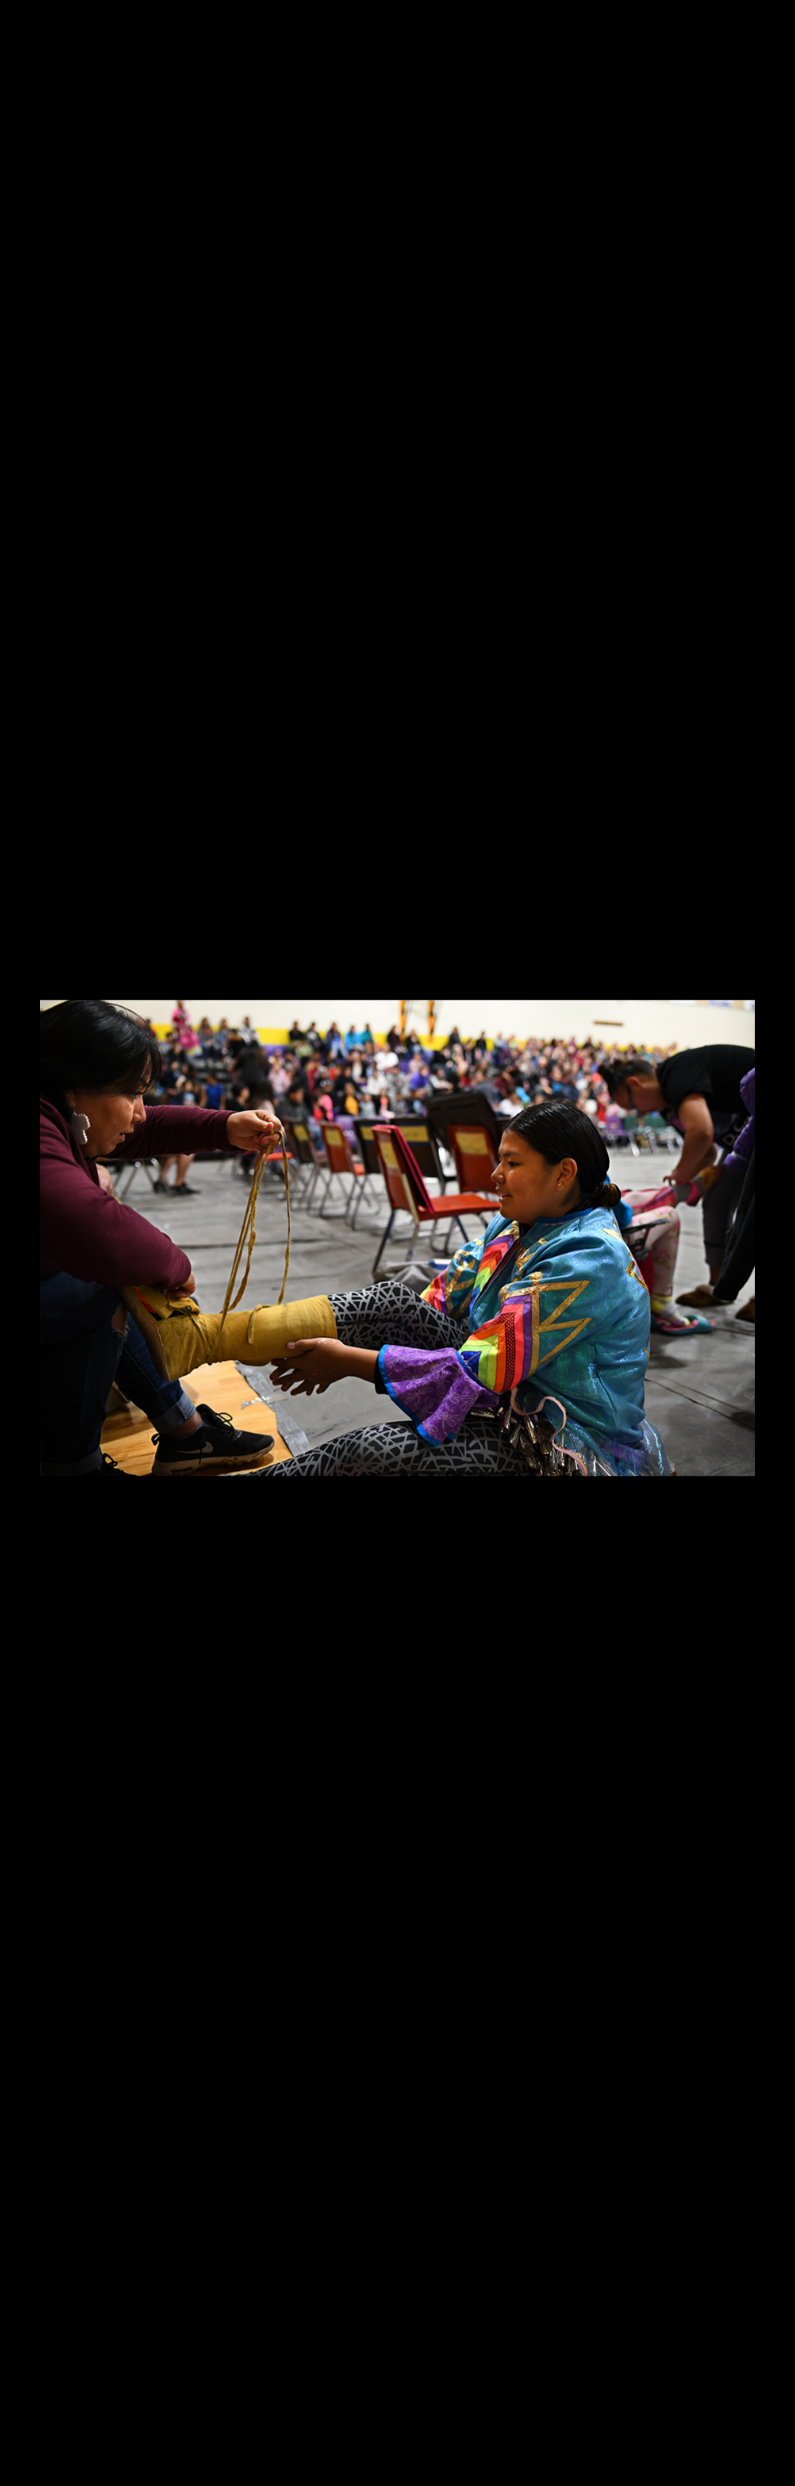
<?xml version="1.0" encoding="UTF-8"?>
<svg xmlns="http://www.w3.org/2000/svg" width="795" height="2486">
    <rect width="100%" height="100%" fill="#000000"/>
    <image x="40" y="999" width="715" height="478" href="img_01.png"/>
</svg>
